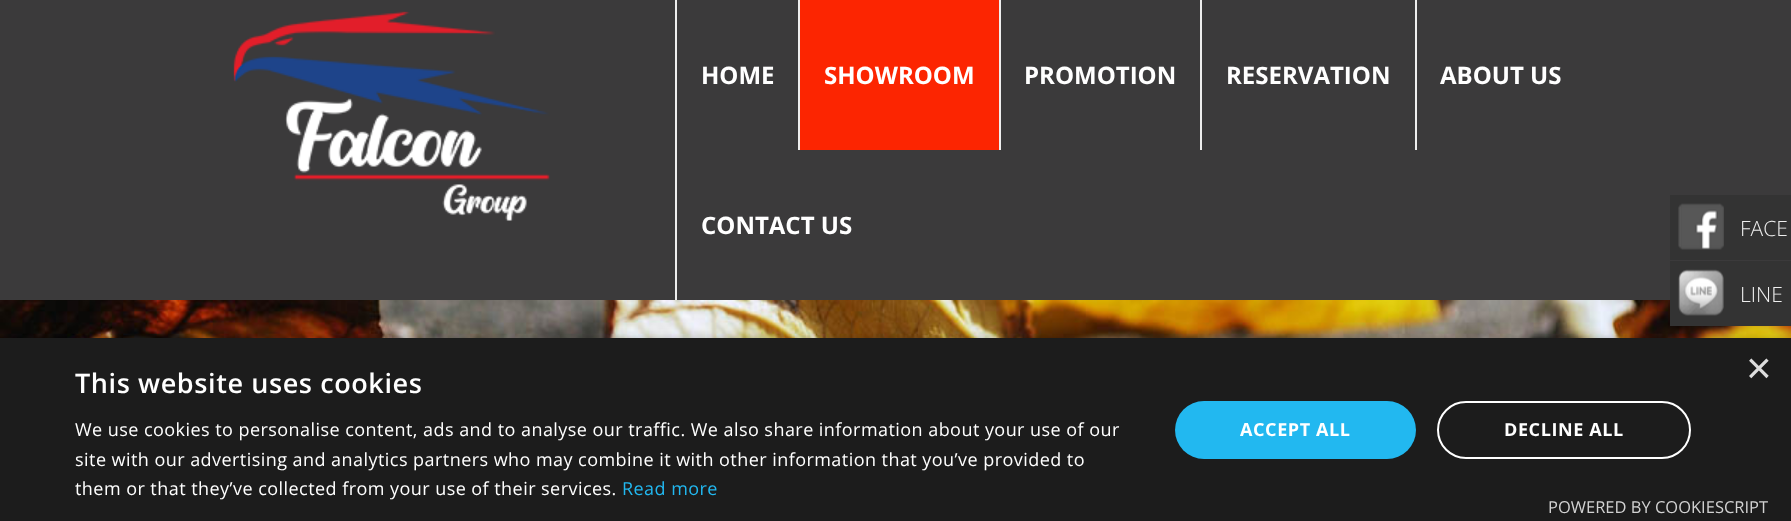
<?xml version="1.0" encoding="UTF-8"?>
<svg xmlns="http://www.w3.org/2000/svg" width="1791" height="521">
    <defs>
        <filter id="blur1" x="-50%" y="-200%" width="200%" height="500%"><feGaussianBlur stdDeviation="6"/></filter>
    </defs>
    <rect width="100%" height="100%" fill="#FFFFFF"/>
    <rect x="0" y="0" width="1791" height="300" fill="#3B3A3B"/>
    <image x="233" y="11" width="317" height="210" href="img_01.png"/>
    <rect x="675" y="0" width="2" height="300" fill="#EEEEEE"/>
    <text x="701" y="84" font-family="Open Sans" font-size="24" font-weight="700" fill="#FFFFFF">HOME</text>
    <rect x="800" y="0" width="199" height="150" fill="#FC2501"/>
    <rect x="798" y="0" width="2" height="150" fill="#EEEEEE"/>
    <text x="824" y="84" font-family="Open Sans" font-size="24" font-weight="700" fill="#FFFFFF">SHOWROOM</text>
    <rect x="999" y="0" width="2" height="150" fill="#EEEEEE"/>
    <text x="1024" y="84" font-family="Open Sans" font-size="24" font-weight="700" fill="#FFFFFF">PROMOTION</text>
    <rect x="1200" y="0" width="2" height="150" fill="#EEEEEE"/>
    <text x="1226" y="84" font-family="Open Sans" font-size="24" font-weight="700" fill="#FFFFFF">RESERVATION</text>
    <rect x="1415" y="0" width="2" height="150" fill="#EEEEEE"/>
    <text x="1440" y="84" font-family="Open Sans" font-size="24" font-weight="700" fill="#FFFFFF">ABOUT US</text>
    <text x="701" y="234" font-family="Open Sans" font-size="24" font-weight="700" fill="#FFFFFF">CONTACT US</text>
    <rect x="1670" y="195" width="121" height="65" fill="#333333"/>
    <image x="1678" y="203" width="46" height="47" href="img_02.png"/>
    <text x="1740" y="236" font-family="Open Sans" font-size="21" font-weight="300" fill="#EFEFEF">FACE</text>
    <image x="0" y="300" width="1791" height="38" href="img_04.png"/>
    <rect x="1670" y="261" width="121" height="65" fill="#333333"/>
    <image x="1678" y="269" width="46" height="47" href="img_03.png"/>
    <text x="1740" y="302" font-family="Open Sans" font-size="21" font-weight="300" fill="#EFEFEF">LINE</text>
    <rect x="2" y="341" width="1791" height="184" fill="#000000" fill-opacity="0.35" filter="url(#blur1)"/>
    <rect x="0" y="338" width="1791" height="183" fill="#1C1C1C"/>
    <text x="1746" y="383" font-family="Liberation Sans" font-size="44" fill="#DDDDDD">×</text>
    <text x="75" y="393" font-family="Open Sans" font-size="27" font-weight="600" letter-spacing="0.6" fill="#FFFFFF">This website uses cookies</text>
    <text font-family="Open Sans" font-size="18" letter-spacing="0.45" fill="#FFFFFF">
        <tspan x="75" y="436">We use cookies to personalise content, ads and to analyse our traffic. We also share information about your use of our</tspan>
        <tspan x="75" y="466">site with our advertising and analytics partners who may combine it with other information that you’ve provided to</tspan>
        <tspan x="75" y="495">them or that they’ve collected from your use of their services.</tspan>
    </text>
    <text x="622" y="495" font-family="Open Sans" font-size="18" letter-spacing="0.45" fill="#22B8F0">Read more</text>
    <rect x="1175" y="401" width="241" height="58" rx="29" fill="#22B8F0"/>
    <text x="1240" y="436" font-family="Open Sans" font-size="18" font-weight="700" letter-spacing="0.6" fill="#FFFFFF">ACCEPT ALL</text>
    <rect x="1438" y="402" width="252" height="56" rx="28" fill="none" stroke="#FFFFFF" stroke-width="2"/>
    <text x="1504" y="436" font-family="Open Sans" font-size="18" font-weight="700" letter-spacing="0.6" fill="#FFFFFF">DECLINE ALL</text>
    <text x="1548" y="513" font-family="Open Sans" font-size="16.5" fill="#D2D2D2">POWERED BY COOKIESCRIPT</text>
</svg>
